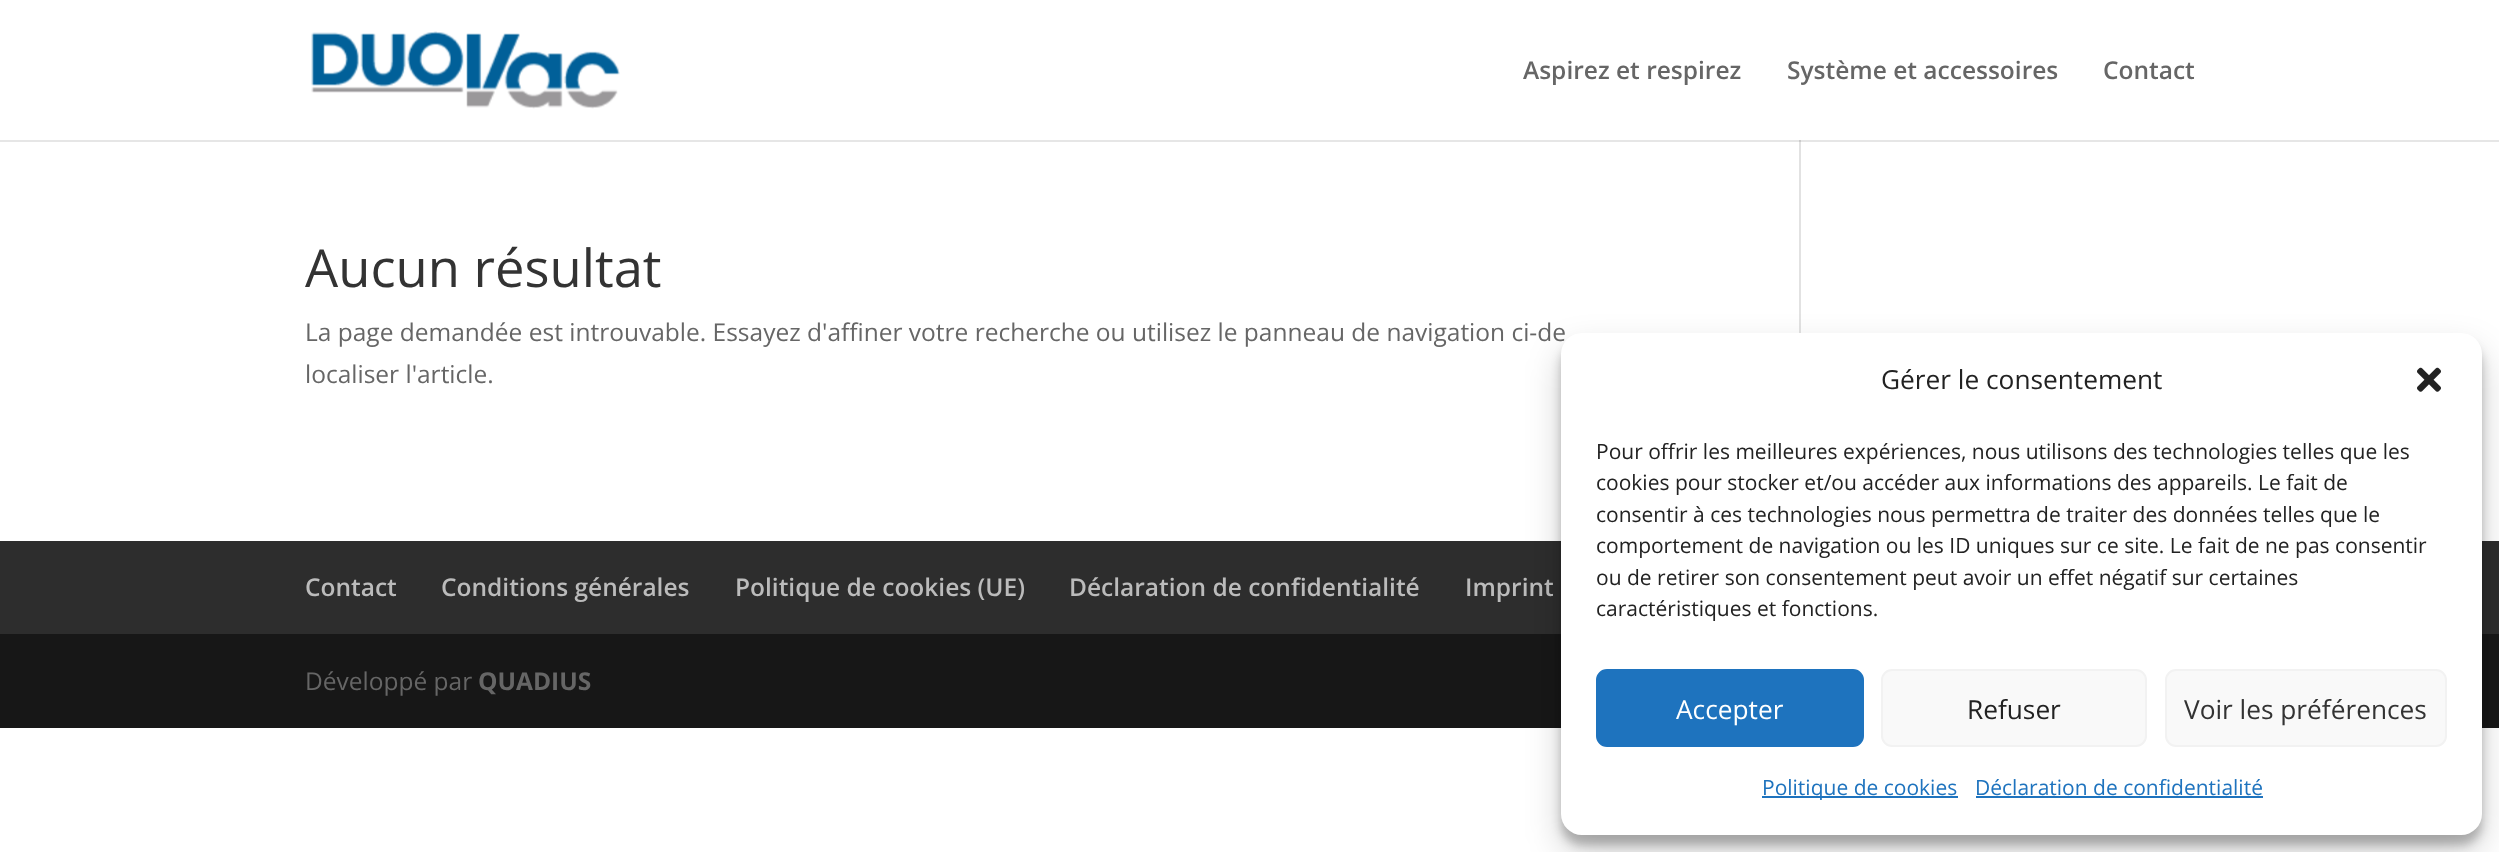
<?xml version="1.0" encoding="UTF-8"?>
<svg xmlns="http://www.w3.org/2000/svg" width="2499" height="852">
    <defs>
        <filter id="blur1" x="-50%" y="-200%" width="200%" height="500%"><feGaussianBlur stdDeviation="5"/></filter>
        <filter id="blur2" x="-50%" y="-200%" width="200%" height="500%"><feGaussianBlur stdDeviation="17.5"/></filter>
    </defs>
    <rect width="100%" height="100%" fill="#FFFFFF"/>
    <rect x="0" y="140" width="2499" height="2" fill="#E6E6E6"/>
    <image x="311" y="31" width="309" height="78" href="img_01.png"/>
    <text x="1523" y="79" font-family="Open Sans" font-size="24.5" font-weight="600" fill="#666666">Aspirez et respirez</text>
    <text x="1787" y="79" font-family="Open Sans" font-size="24.5" font-weight="600" fill="#666666">Système et accessoires</text>
    <text x="2103" y="79" font-family="Open Sans" font-size="24.5" font-weight="600" fill="#666666">Contact</text>
    <text x="305" y="287" font-family="Open Sans" font-size="52.5" fill="#333333">Aucun résultat</text>
    <text font-family="Open Sans" font-size="24.5" fill="#666666">
        <tspan x="305" y="341">La page demandée est introuvable. Essayez d'affiner votre recherche ou utilisez le panneau de navigation ci-de</tspan>
        <tspan x="305" y="383">localiser l'article.</tspan>
    </text>
    <rect x="1799" y="140" width="2" height="193" fill="#E2E2E2"/>
    <rect x="1799" y="140" width="2" height="2" fill="#CBCBCB"/>
    <rect x="0" y="541" width="2499" height="93" fill="#2D2D2D"/>
    <text x="305" y="596" font-family="Open Sans" font-size="24.5" font-weight="600" fill="#BBBBBB">Contact</text>
    <text x="441" y="596" font-family="Open Sans" font-size="24.5" font-weight="600" fill="#BBBBBB">Conditions générales</text>
    <text x="735" y="596" font-family="Open Sans" font-size="24.5" font-weight="600" fill="#BBBBBB">Politique de cookies (UE)</text>
    <text x="1069" y="596" font-family="Open Sans" font-size="24.5" font-weight="600" fill="#BBBBBB">Déclaration de confidentialité</text>
    <text x="1465" y="596" font-family="Open Sans" font-size="24.5" font-weight="600" fill="#BBBBBB">Imprint</text>
    <rect x="0" y="634" width="2499" height="94" fill="#171717"/>
    <text x="305" y="690" font-family="Open Sans" font-size="24.5" fill="#666666">Développé par</text>
    <text x="478" y="690" font-family="Open Sans" font-size="24.5" font-weight="700" fill="#666666">QUADIUS</text>
    <rect x="1561" y="343" width="921" height="502" rx="21" fill="#000000" fill-opacity="0.23" filter="url(#blur1)"/>
    <rect x="1561" y="350" width="921" height="502" rx="21" fill="#000000" fill-opacity="0.19" filter="url(#blur2)"/>
    <rect x="1561" y="333" width="921" height="502" rx="21" fill="#FFFFFF"/>
    <text x="1881" y="389" font-family="Open Sans" font-size="26.25" fill="#222222">Gérer le consentement</text>
    <image x="2417" y="367" width="24" height="25" href="img_02.png"/>
    <text font-family="Open Sans" font-size="21" fill="#222222">
        <tspan x="1596" y="459">Pour offrir les meilleures expériences, nous utilisons des technologies telles que les</tspan>
        <tspan x="1596" y="490">cookies pour stocker et/ou accéder aux informations des appareils. Le fait de</tspan>
        <tspan x="1596" y="522">consentir à ces technologies nous permettra de traiter des données telles que le</tspan>
        <tspan x="1596" y="553">comportement de navigation ou les ID uniques sur ce site. Le fait de ne pas consentir</tspan>
        <tspan x="1596" y="585">ou de retirer son consentement peut avoir un effet négatif sur certaines</tspan>
        <tspan x="1596" y="616">caractéristiques et fonctions.</tspan>
    </text>
    <rect x="1597" y="670" width="266" height="76" rx="10" fill="#1E73BE" stroke="#1E73BE" stroke-width="2"/>
    <text x="1676" y="719" font-family="Open Sans" font-size="26.25" fill="#FFFFFF">Accepter</text>
    <rect x="1882" y="670" width="264" height="76" rx="10" fill="#F9F9F9" stroke="#F2F2F2" stroke-width="2"/>
    <text x="1967" y="719" font-family="Open Sans" font-size="26.25" fill="#222222">Refuser</text>
    <rect x="2166" y="670" width="280" height="76" rx="10" fill="#F9F9F9" stroke="#F2F2F2" stroke-width="2"/>
    <text x="2184" y="719" font-family="Open Sans" font-size="26.25" fill="#333333">Voir les préférences</text>
    <rect x="1762" y="796" width="196" height="2" fill="#1E73BE"/>
    <text x="1762" y="795" font-family="Open Sans" font-size="21" fill="#1E73BE">Politique de cookies</text>
    <text x="1975" y="795" font-family="Open Sans" font-size="21" fill="#1E73BE">Déclaration de confidentialité</text>
    <rect x="1976" y="796" width="287" height="2" fill="#1E73BE"/>
</svg>
